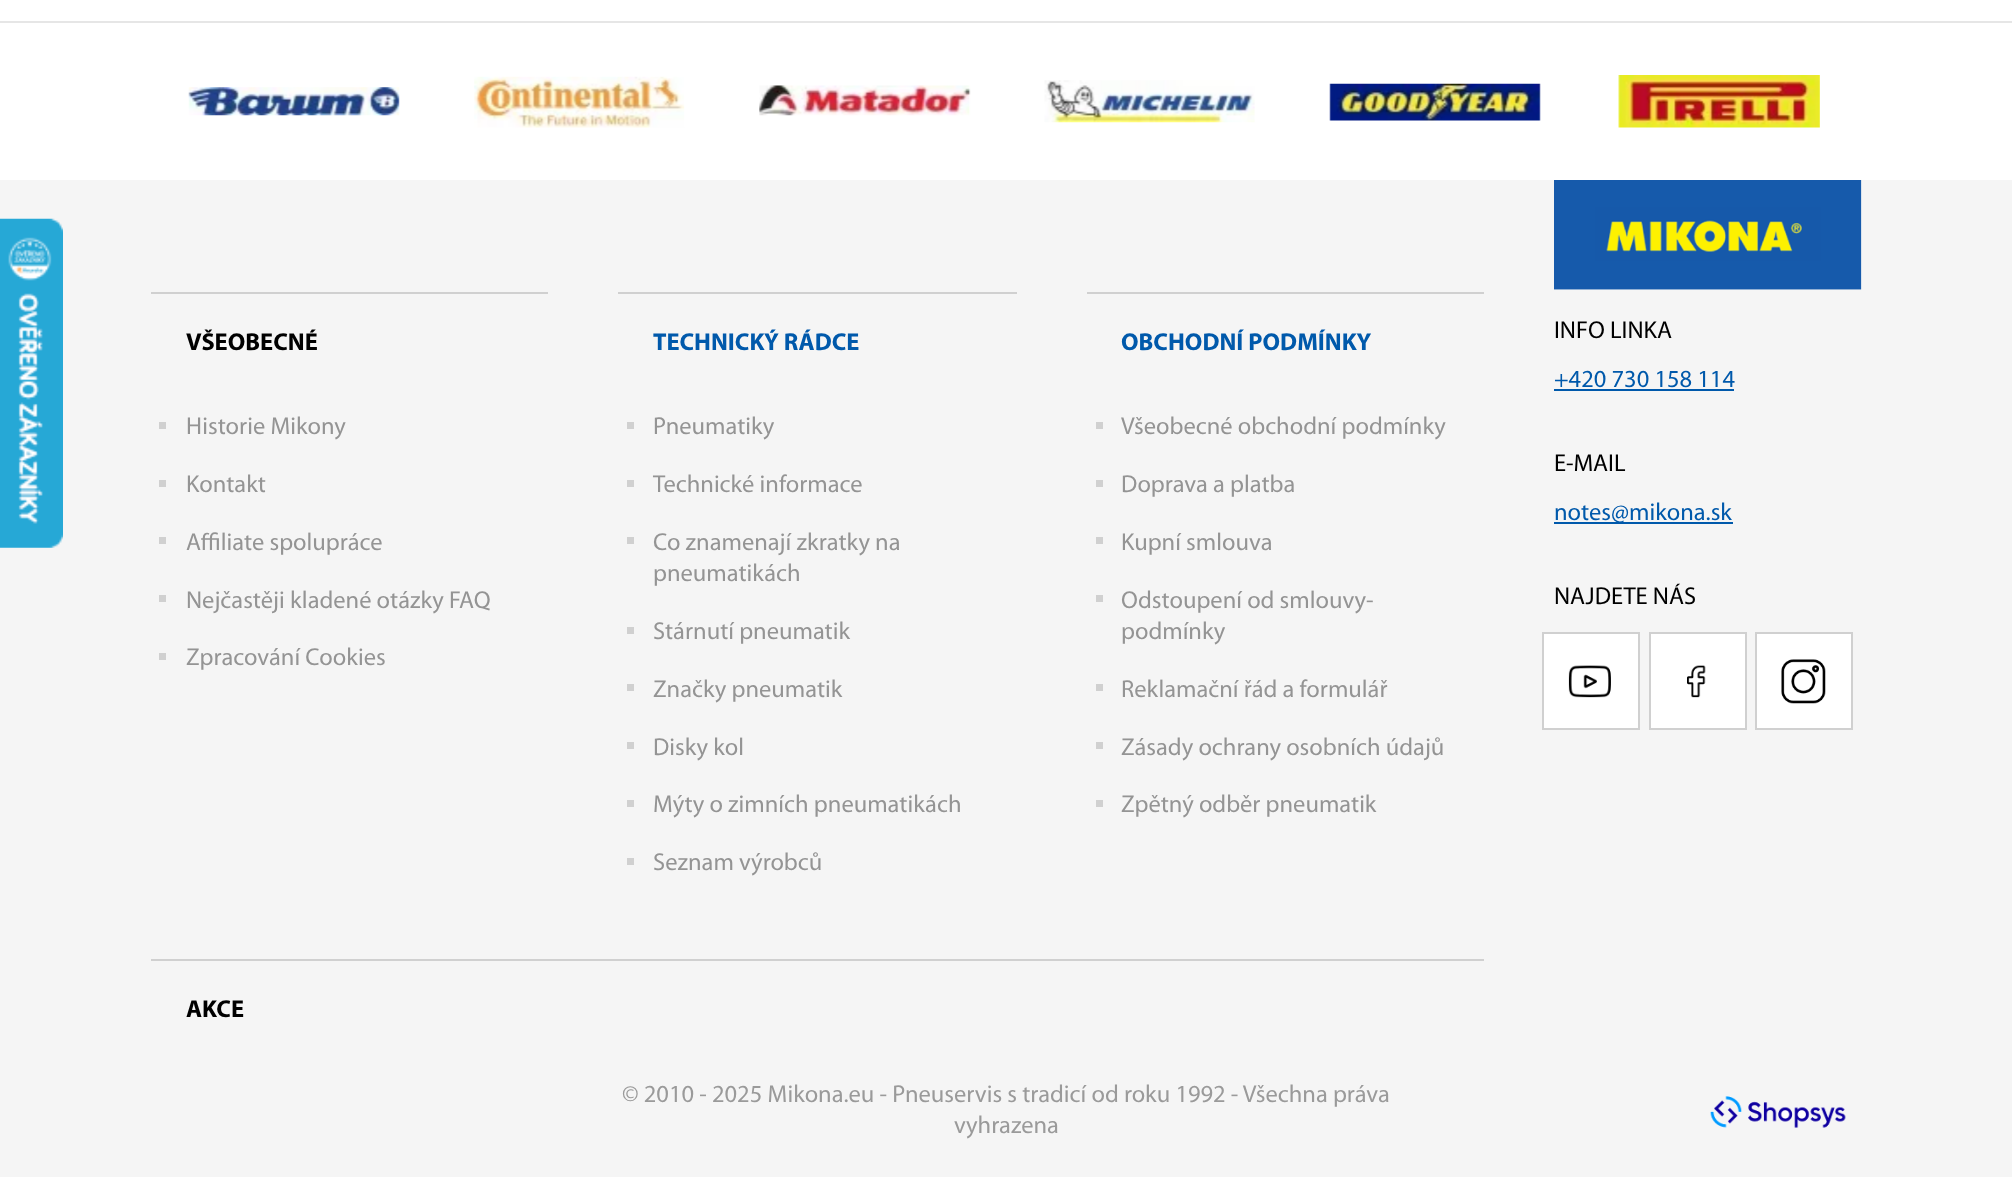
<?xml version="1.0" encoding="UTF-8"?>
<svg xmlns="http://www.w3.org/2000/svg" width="2012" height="1177">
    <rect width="100%" height="100%" fill="#FFFFFF"/>
    <rect x="0" y="21" width="2012" height="2" fill="#E6E6E6"/>
    <image x="188" y="87" width="212" height="29" href="img_01.png"/>
    <image x="474" y="76" width="211" height="52" href="img_02.png"/>
    <image x="759" y="85" width="212" height="31" href="img_03.png"/>
    <image x="1044" y="80" width="211" height="43" href="img_04.png"/>
    <image x="1329" y="83" width="212" height="38" href="img_05.png"/>
    <image x="1618" y="75" width="202" height="53" href="img_06.png"/>
    <rect x="0" y="180" width="2012" height="997" fill="#F5F5F5"/>
    <image x="0" y="218" width="63" height="330" href="img_07.png"/>
    <rect x="151" y="292" width="397" height="2" fill="#D0D0D0"/>
    <text x="186" y="350" font-family="Myriad" font-size="24.5" font-weight="700" fill="#000000">VŠEOBECNÉ</text>
    <rect x="159" y="422" width="7" height="7" fill="#D0D0D0"/>
    <text x="186" y="434" font-family="Myriad" font-size="24.5" fill="#949494">Historie Mikony</text>
    <rect x="159" y="480" width="7" height="7" fill="#D0D0D0"/>
    <text x="186" y="492" font-family="Myriad" font-size="24.5" fill="#949494">Kontakt</text>
    <rect x="159" y="537" width="7" height="7" fill="#D0D0D0"/>
    <text x="186" y="550" font-family="Myriad" font-size="24.5" fill="#949494">Affiliate spolupráce</text>
    <rect x="159" y="595" width="7" height="7" fill="#D0D0D0"/>
    <text x="186" y="608" font-family="Myriad" font-size="24.5" fill="#949494">Nejčastěji kladené otázky FAQ</text>
    <rect x="159" y="653" width="7" height="7" fill="#D0D0D0"/>
    <text x="186" y="665" font-family="Myriad" font-size="24.5" fill="#949494">Zpracování Cookies</text>
    <rect x="618" y="292" width="399" height="2" fill="#D0D0D0"/>
    <text x="653" y="350" font-family="Myriad" font-size="24.5" font-weight="700" fill="#0059AB">TECHNICKÝ RÁDCE</text>
    <rect x="627" y="422" width="7" height="7" fill="#D0D0D0"/>
    <text x="653" y="434" font-family="Myriad" font-size="24.5" fill="#949494">Pneumatiky</text>
    <rect x="627" y="480" width="7" height="7" fill="#D0D0D0"/>
    <text x="653" y="492" font-family="Myriad" font-size="24.5" fill="#949494">Technické informace</text>
    <rect x="627" y="537" width="7" height="7" fill="#D0D0D0"/>
    <text font-family="Myriad" font-size="24.5" fill="#949494">
        <tspan x="653" y="550">Co znamenají zkratky na</tspan>
        <tspan x="653" y="581">pneumatikách</tspan>
    </text>
    <rect x="627" y="627" width="7" height="7" fill="#D0D0D0"/>
    <text x="653" y="639" font-family="Myriad" font-size="24.5" fill="#949494">Stárnutí pneumatik</text>
    <rect x="627" y="684" width="7" height="7" fill="#D0D0D0"/>
    <text x="653" y="697" font-family="Myriad" font-size="24.5" fill="#949494">Značky pneumatik</text>
    <rect x="627" y="742" width="7" height="7" fill="#D0D0D0"/>
    <text x="653" y="755" font-family="Myriad" font-size="24.5" fill="#949494">Disky kol</text>
    <rect x="627" y="800" width="7" height="7" fill="#D0D0D0"/>
    <text x="653" y="812" font-family="Myriad" font-size="24.5" fill="#949494">Mýty o zimních pneumatikách</text>
    <rect x="627" y="858" width="7" height="7" fill="#D0D0D0"/>
    <text x="653" y="870" font-family="Myriad" font-size="24.5" fill="#949494">Seznam výrobců</text>
    <rect x="1087" y="292" width="397" height="2" fill="#D0D0D0"/>
    <text x="1121" y="350" font-family="Myriad" font-size="24.5" font-weight="700" fill="#0059AB">OBCHODNÍ PODMÍNKY</text>
    <rect x="1096" y="422" width="7" height="7" fill="#D0D0D0"/>
    <text x="1121" y="434" font-family="Myriad" font-size="24.5" fill="#949494">Všeobecné obchodní podmínky</text>
    <rect x="1096" y="480" width="7" height="7" fill="#D0D0D0"/>
    <text x="1121" y="492" font-family="Myriad" font-size="24.5" fill="#949494">Doprava a platba</text>
    <rect x="1096" y="537" width="7" height="7" fill="#D0D0D0"/>
    <text x="1121" y="550" font-family="Myriad" font-size="24.5" fill="#949494">Kupní smlouva</text>
    <rect x="1096" y="595" width="7" height="7" fill="#D0D0D0"/>
    <text font-family="Myriad" font-size="24.5" fill="#949494">
        <tspan x="1121" y="608">Odstoupení od smlouvy-</tspan>
        <tspan x="1121" y="639">podmínky</tspan>
    </text>
    <rect x="1096" y="684" width="7" height="7" fill="#D0D0D0"/>
    <text x="1121" y="697" font-family="Myriad" font-size="24.5" fill="#949494">Reklamační řád a formulář</text>
    <rect x="1096" y="742" width="7" height="7" fill="#D0D0D0"/>
    <text x="1121" y="755" font-family="Myriad" font-size="24.5" fill="#949494">Zásady ochrany osobních údajů</text>
    <rect x="1096" y="800" width="7" height="7" fill="#D0D0D0"/>
    <text x="1121" y="812" font-family="Myriad" font-size="24.5" fill="#949494">Zpětný odběr pneumatik</text>
    <rect x="151" y="959" width="1333" height="2" fill="#D0D0D0"/>
    <text x="186" y="1017" font-family="Myriad" font-size="24.5" font-weight="700" fill="#000000">AKCE</text>
    <image x="1554" y="180" width="308" height="110" href="img_08.png"/>
    <text x="1554" y="338" font-family="Myriad" font-size="24.5" fill="#000000">INFO LINKA</text>
    <text x="1554" y="387" font-family="Myriad" font-size="24.5" fill="#0059AB">+420 730 158 114</text>
    <rect x="1554" y="389" width="180" height="2" fill="#0059AB"/>
    <text x="1554" y="471" font-family="Myriad" font-size="24.5" fill="#000000">E-MAIL</text>
    <rect x="1554" y="522" width="179" height="2" fill="#0059AB"/>
    <text x="1554" y="520" font-family="Myriad" font-size="24.5" fill="#0059AB">notes@mikona.sk</text>
    <text x="1554" y="604" font-family="Myriad" font-size="24.5" fill="#000000">NAJDETE NÁS</text>
    <rect x="1543" y="633" width="96" height="96" fill="#FFFFFF" stroke="#D0D0D0" stroke-width="2"/>
    <image x="1568" y="665" width="43" height="33" href="img_09.png"/>
    <rect x="1650" y="633" width="96" height="96" fill="#FFFFFF" stroke="#D0D0D0" stroke-width="2"/>
    <image x="1687" y="665" width="19" height="33" href="img_10.png"/>
    <rect x="1756" y="633" width="96" height="96" fill="#FFFFFF" stroke="#D0D0D0" stroke-width="2"/>
    <image x="1781" y="659" width="45" height="45" href="img_11.png"/>
    <text x="622" y="1102" font-family="Myriad" font-size="24.5" fill="#9A9A9A">© 2010 - 2025 Mikona.eu - Pneuservis s tradicí od roku 1992 - Všechna práva</text>
    <text x="954" y="1133" font-family="Myriad" font-size="24.5" fill="#9A9A9A">vyhrazena</text>
    <image x="1710" y="1096" width="136" height="32" href="img_12.png"/>
</svg>
